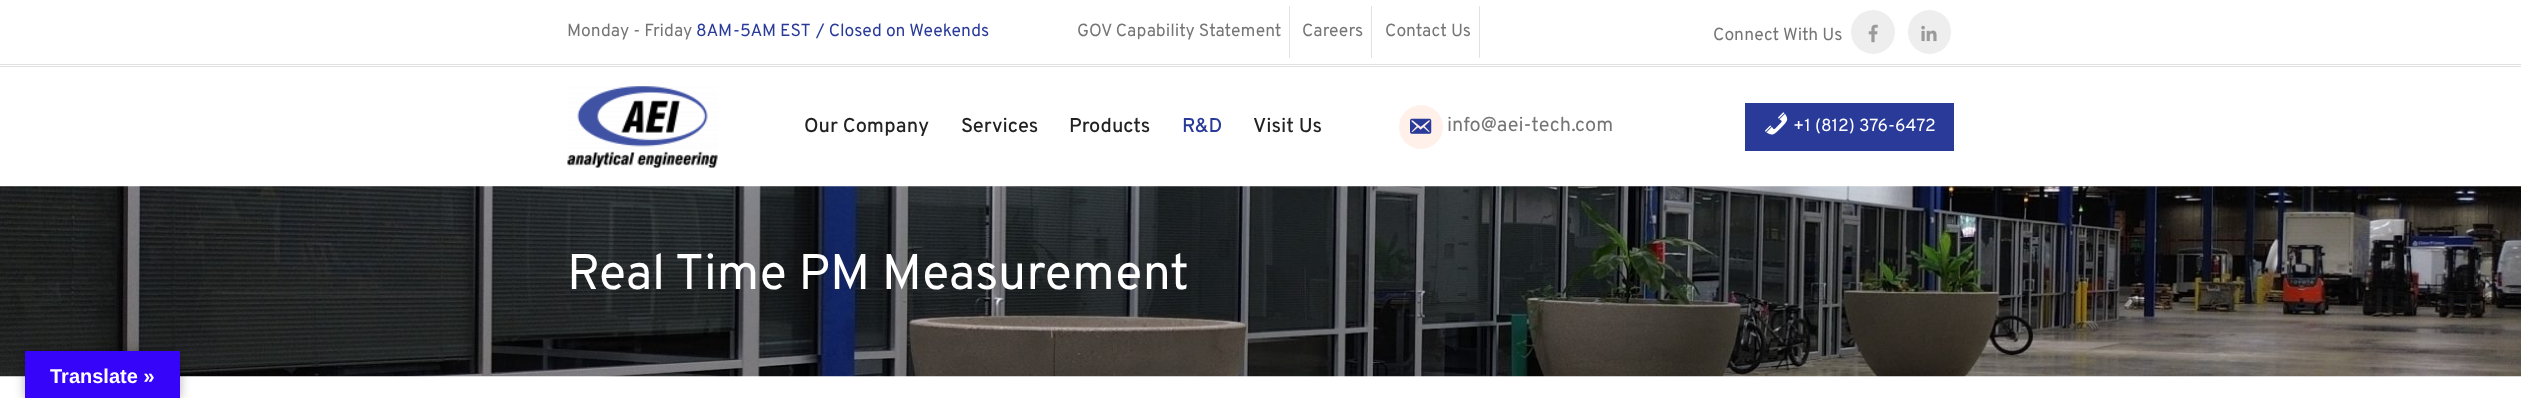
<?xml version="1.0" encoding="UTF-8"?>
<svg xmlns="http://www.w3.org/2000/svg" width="2521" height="398">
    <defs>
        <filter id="blur1" x="-50%" y="-200%" width="200%" height="500%"><feGaussianBlur stdDeviation="5.5"/></filter>
    </defs>
    <rect width="100%" height="100%" fill="#FFFFFF"/>
    <rect x="0" y="64" width="2521" height="1" fill="#E1E1E1"/>
    <text x="567" y="36" font-family="Overpass" font-size="17.5" fill="#757575">Monday - Friday</text>
    <text x="696" y="36" font-family="Overpass" font-size="17.5" fill="#293A99">8AM-5AM EST</text>
    <text x="816" y="36" font-family="Overpass" font-size="17.5" fill="#293A99">/ Closed on Weekends</text>
    <text x="1077" y="36" font-family="Overpass" font-size="17.5" fill="#757575">GOV Capability Statement</text>
    <rect x="1289" y="6" width="1" height="52" fill="#E1E1E1"/>
    <text x="1302" y="36" font-family="Overpass" font-size="17.5" fill="#757575">Careers</text>
    <rect x="1371" y="6" width="1" height="52" fill="#E1E1E1"/>
    <text x="1385" y="36" font-family="Overpass" font-size="17.5" fill="#757575">Contact Us</text>
    <rect x="1479" y="6" width="1" height="52" fill="#E1E1E1"/>
    <text x="1713" y="40" font-family="Overpass" font-size="17.5" fill="#757575">Connect With Us</text>
    <circle cx="1873" cy="32" r="22" fill="#EEEEEE"/>
    <image x="1868" y="24" width="10" height="19" href="img_01.png"/>
    <rect x="1908" y="10" width="43" height="44" rx="21.5" fill="#EEEEEE"/>
    <image x="1921" y="25" width="16" height="17" href="img_02.png"/>
    <rect x="0" y="66" width="2521" height="1" fill="#E1E1E1"/>
    <image x="567" y="86" width="151" height="82" href="img_03.png"/>
    <text x="804" y="132" font-family="Overpass" font-size="20" font-weight="500" fill="#222222">Our Company</text>
    <text x="961" y="132" font-family="Overpass" font-size="20" font-weight="500" fill="#222222">Services</text>
    <text x="1069" y="132" font-family="Overpass" font-size="20" font-weight="500" fill="#222222">Products</text>
    <text x="1182" y="132" font-family="Overpass" font-size="20" font-weight="500" fill="#293A99">R&amp;D</text>
    <text x="1253" y="132" font-family="Overpass" font-size="20" font-weight="500" fill="#222222">Visit Us</text>
    <circle cx="1421" cy="127" r="22" fill="#FFF1E9"/>
    <image x="1410" y="118" width="22" height="16" href="img_04.png"/>
    <text x="1447" y="131" font-family="Overpass" font-size="20" fill="#757575">info@aei-tech.com</text>
    <rect x="1745" y="103" width="209" height="48" fill="#293A99"/>
    <image x="1765" y="112" width="23" height="23" href="img_05.png"/>
    <text x="1793" y="131" font-family="Overpass" font-size="17.5" fill="#FFFFFF">+1 (812) 376-6472</text>
    <image x="0" y="186" width="2521" height="191" href="img_06.png"/>
    <text x="567" y="289" font-family="Overpass" font-size="50" fill="#FFFFFF">Real Time PM Measurement</text>
    <rect x="25" y="351" width="155" height="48" fill="#000000" fill-opacity="0.3" filter="url(#blur1)"/>
    <rect x="25" y="351" width="155" height="47" fill="#3504F9"/>
    <text x="50" y="383" font-family="Liberation Sans" font-size="20" font-weight="700" fill="#FFFFFF">Translate »</text>
</svg>
